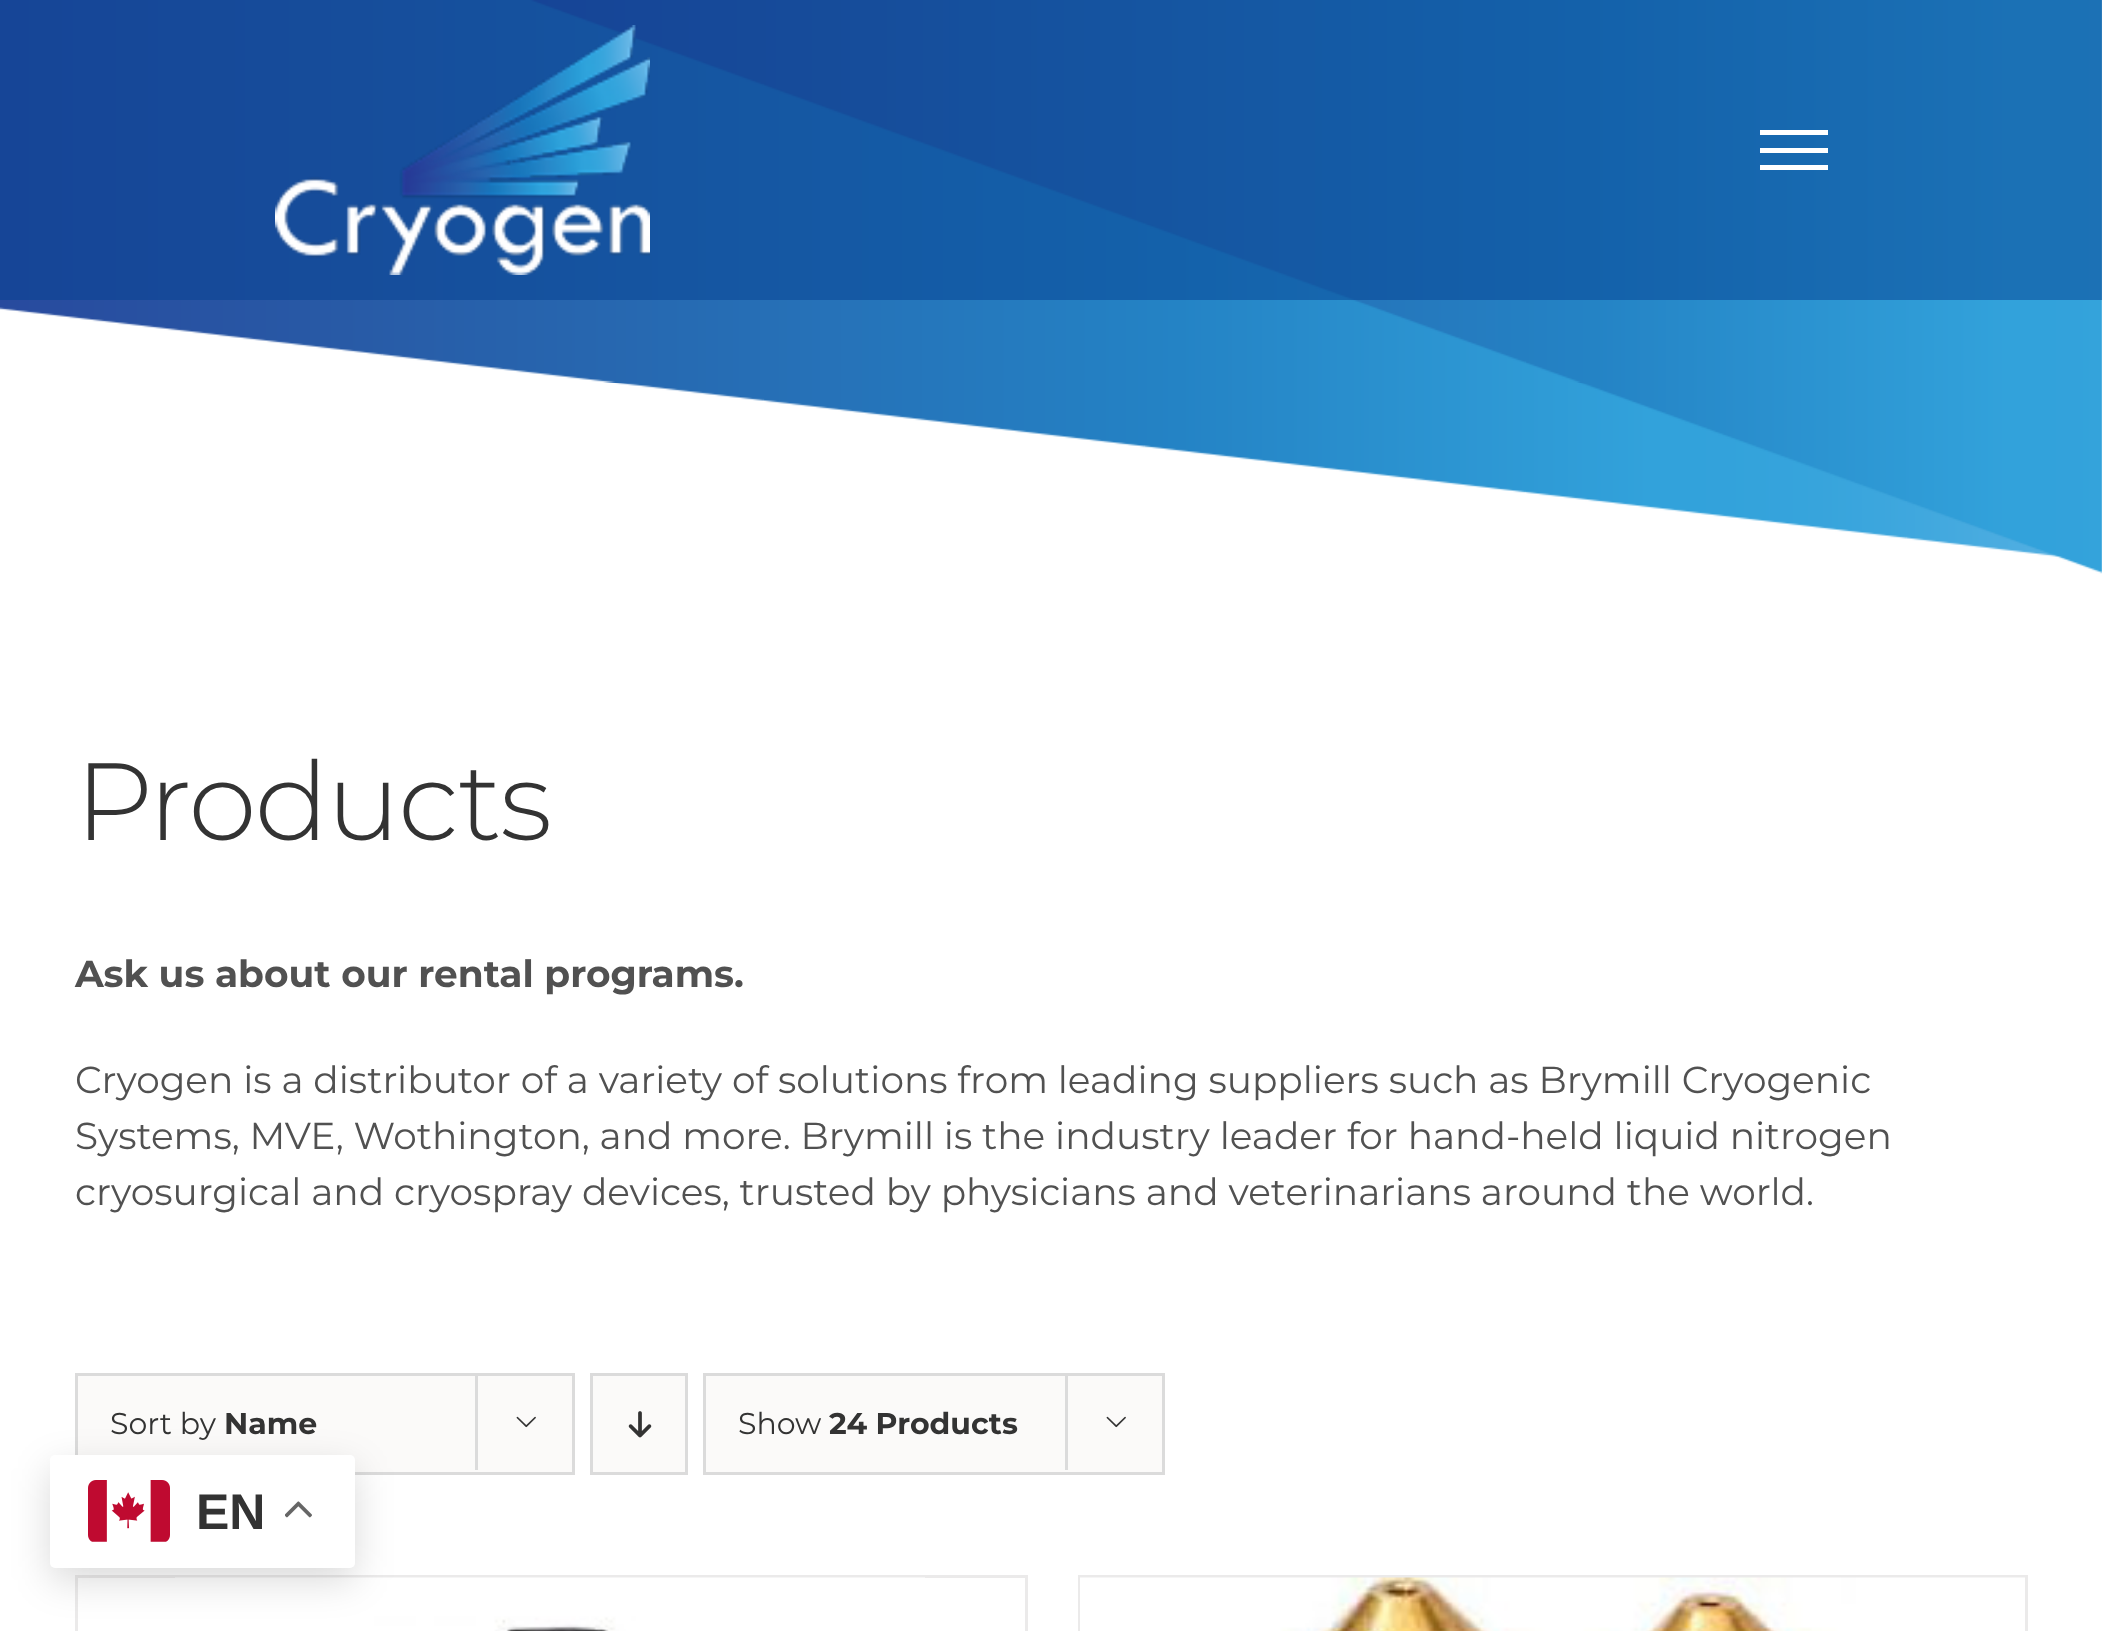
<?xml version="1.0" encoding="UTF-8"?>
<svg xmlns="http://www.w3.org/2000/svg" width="2102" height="1631">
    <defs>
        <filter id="blur1" x="-50%" y="-200%" width="200%" height="500%"><feGaussianBlur stdDeviation="19"/></filter>
    </defs>
    <rect width="100%" height="100%" fill="#FFFFFF"/>
    <image x="0" y="0" width="2102" height="574" href="img_01.png"/>
    <rect x="0" y="0" width="2102" height="300" fill="#044090" fill-opacity="0.5"/>
    <image x="275" y="25" width="375" height="250" href="img_02.png"/>
    <rect x="1760" y="130" width="68" height="5" fill="#FFFFFF"/>
    <rect x="1760" y="148" width="68" height="5" fill="#FFFFFF"/>
    <rect x="1760" y="165" width="68" height="5" fill="#FFFFFF"/>
    <text x="75" y="840" font-family="Montserrat" font-size="109.5" font-weight="300" letter-spacing="-1.75" fill="#333333">Products</text>
    <text x="75" y="987" font-family="Montserrat" font-size="37.5" font-weight="700" fill="#515151">Ask us about our rental programs.</text>
    <text font-family="Montserrat" font-size="37.5" fill="#515151">
        <tspan x="75" y="1093">Cryogen is a distributor of a variety of solutions from leading suppliers such as Brymill Cryogenic</tspan>
        <tspan x="75" y="1149">Systems, MVE, Wothington, and more. Brymill is the industry leader for hand-held liquid nitrogen</tspan>
        <tspan x="75" y="1205">cryosurgical and cryospray devices, trusted by physicians and veterinarians around the world.</tspan>
    </text>
    <rect x="76.5" y="1374.5" width="497" height="99" fill="#FBFAF9" stroke="#DBDBDB" stroke-width="3"/>
    <text x="110" y="1434" font-family="Montserrat" font-size="30" fill="#333333">Sort by</text>
    <text x="224" y="1434" font-family="Montserrat" font-size="30" font-weight="700" fill="#333333">Name</text>
    <rect x="475" y="1373" width="3" height="97" fill="#DBDBDB"/>
    <image x="516" y="1416" width="20" height="12" href="img_03.png"/>
    <rect x="591.5" y="1374.5" width="95" height="99" fill="#FBFAF9" stroke="#DBDBDB" stroke-width="3"/>
    <image x="628" y="1411" width="24" height="27" href="img_04.png"/>
    <rect x="704.5" y="1374.5" width="459" height="99" fill="#FBFAF9" stroke="#DBDBDB" stroke-width="3"/>
    <text x="738" y="1434" font-family="Montserrat" font-size="30" fill="#333333">Show</text>
    <text x="829" y="1434" font-family="Montserrat" font-size="30" font-weight="700" fill="#333333">24 Products</text>
    <rect x="1065" y="1373" width="3" height="97" fill="#DBDBDB"/>
    <image x="1106" y="1416" width="20" height="12" href="img_03.png"/>
    <rect x="75" y="1575" width="953" height="3" fill="#EBEAEA"/>
    <rect x="1025" y="1575" width="3" height="56" fill="#EBEAEA"/>
    <rect x="75" y="1575" width="3" height="56" fill="#EBEAEA"/>
    <image x="175" y="1577" width="750" height="54" href="img_05.png"/>
    <rect x="1078" y="1575" width="950" height="3" fill="#EBEAEA"/>
    <rect x="2025" y="1575" width="3" height="56" fill="#EBEAEA"/>
    <rect x="1078" y="1575" width="3" height="56" fill="#EBEAEA"/>
    <image x="1080" y="1577" width="945" height="54" href="img_06.png"/>
    <rect x="50" y="1468" width="305" height="112" rx="5" fill="#000000" fill-opacity="0.15" filter="url(#blur1)"/>
    <rect x="50" y="1455" width="305" height="113" rx="5" fill="#FFFFFF"/>
    <image x="88" y="1480" width="82" height="62" href="img_07.png"/>
    <text x="196" y="1529" font-family="Liberation Sans" font-size="50" font-weight="700" fill="#333333">EN</text>
    <image x="285" y="1501" width="27" height="17" href="img_08.png"/>
</svg>
